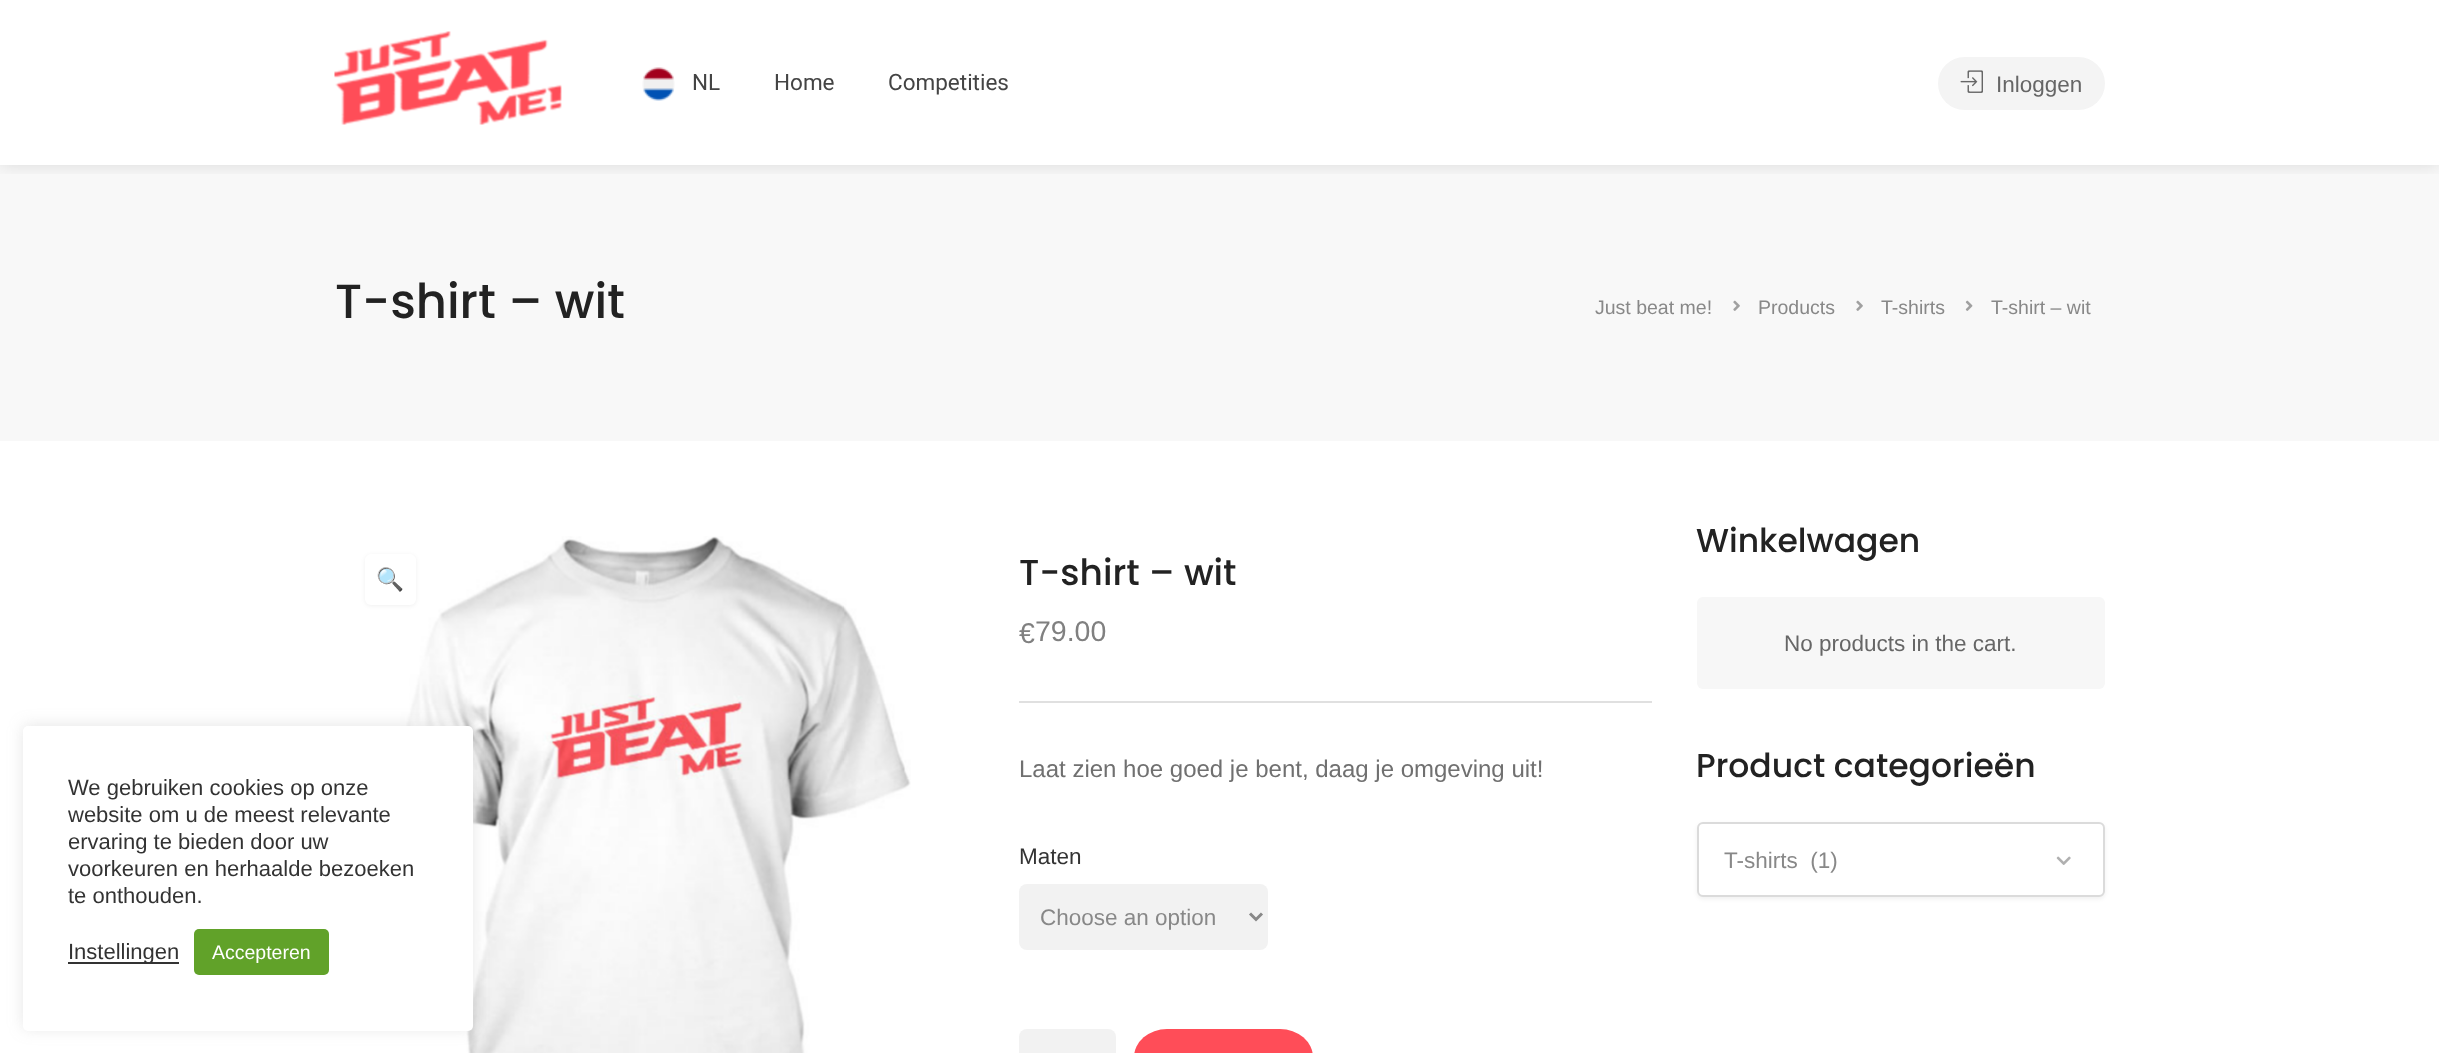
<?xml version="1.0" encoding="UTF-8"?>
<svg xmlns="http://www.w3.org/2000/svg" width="2439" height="1053">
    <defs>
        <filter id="blur1" x="-50%" y="-200%" width="200%" height="500%"><feGaussianBlur stdDeviation="7.5"/></filter>
        <clipPath id="clip1"><rect x="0" y="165" width="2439" height="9"/></clipPath>
        <filter id="blur2" x="-50%" y="-200%" width="200%" height="500%"><feGaussianBlur stdDeviation="9"/></filter>
        <filter id="blur3" x="-50%" y="-200%" width="200%" height="500%"><feGaussianBlur stdDeviation="2"/></filter>
    </defs>
    <rect width="100%" height="100%" fill="#FFFFFF"/>
    <image x="387" y="536" width="524" height="517" href="img_06.png"/>
    <rect x="23" y="725" width="450" height="304" rx="5" fill="#ACABAB" fill-opacity="0.3" filter="url(#blur1)"/>
    <rect x="23" y="726" width="450" height="305" rx="5" fill="#FFFFFF"/>
    <text font-family="Liberation Sans" font-size="22" fill="#333333">
        <tspan x="68" y="795">We gebruiken cookies op onze</tspan>
        <tspan x="68" y="822">website om u de meest relevante</tspan>
        <tspan x="68" y="849">ervaring te bieden door uw</tspan>
        <tspan x="68" y="876">voorkeuren en herhaalde bezoeken</tspan>
        <tspan x="68" y="903">te onthouden.</tspan>
    </text>
    <rect x="68" y="962" width="111" height="2" fill="#333333"/>
    <text x="68" y="959" font-family="Liberation Sans" font-size="22" fill="#333333">Instellingen</text>
    <rect x="194" y="929" width="135" height="46" rx="5" fill="#61A229"/>
    <text x="212" y="959" font-family="Liberation Sans" font-size="19.5" fill="#FFFFFF">Accepteren</text>
    <rect x="0" y="165" width="2439" height="276" fill="#F8F8F8"/>
    <g clip-path="url(#clip1)">
        <rect x="0" y="0" width="2439" height="165" fill="#000000" fill-opacity="0.12" filter="url(#blur2)"/>
    </g>
    <image x="334" y="31" width="228" height="94" href="img_01.png"/>
    <image x="642" y="67" width="33" height="34" href="img_02.png"/>
    <text x="692" y="90" font-family="Roboto" font-size="22.5" fill="#444444">NL</text>
    <text x="774" y="90" font-family="Roboto" font-size="22.5" fill="#444444">Home</text>
    <text x="888" y="90" font-family="Roboto" font-size="22.5" fill="#444444">Competities</text>
    <rect x="1938" y="57" width="167" height="53" rx="26.5" fill="#F4F4F4"/>
    <image x="1960" y="70" width="23" height="23" href="img_03.png"/>
    <text x="1996" y="92" font-family="Liberation Sans" font-size="22.5" fill="#666666">Inloggen</text>
    <text x="335" y="318" font-family="Poppins" font-size="48" font-weight="500" fill="#222222">T-shirt – wit</text>
    <text x="1595" y="314" font-family="Liberation Sans" font-size="19.5" fill="#888888">Just beat me!</text>
    <image x="1733" y="300" width="7" height="11" href="img_04.png"/>
    <text x="1758" y="314" font-family="Liberation Sans" font-size="19.5" fill="#888888">Products</text>
    <image x="1856" y="300" width="7" height="11" href="img_04.png"/>
    <text x="1881" y="314" font-family="Liberation Sans" font-size="19.5" fill="#888888">T-shirts</text>
    <image x="1965" y="300" width="8" height="11" href="img_05.png"/>
    <text x="1991" y="314" font-family="Liberation Sans" font-size="19.5" fill="#888888">T-shirt – wit</text>
    <rect x="365" y="555" width="51" height="51" rx="6" fill="#000000" fill-opacity="0.06" filter="url(#blur3)"/>
    <rect x="365" y="554" width="51" height="51" rx="6" fill="#FFFFFF"/>
    <text x="376" y="587" font-family="Noto Color Emoji" font-size="22.5" fill="#FF4D58">🔍</text>
    <text x="1019" y="585" font-family="Poppins" font-size="36" font-weight="500" fill="#222222">T-shirt – wit</text>
    <text x="1019" y="643" font-family="Liberation Sans" font-size="28.5" fill="#808080">€</text>
    <text x="1035" y="641" font-family="Liberation Sans" font-size="28.5" fill="#808080">79.00</text>
    <rect x="1019" y="701" width="633" height="2" fill="#E0E0E0"/>
    <text x="1019" y="777" font-family="Liberation Sans" font-size="24" fill="#707070">Laat zien hoe goed je bent, daag je omgeving uit!</text>
    <text x="1019" y="864" font-family="Liberation Sans" font-size="22.5" fill="#333333">Maten</text>
    <rect x="1019" y="884" width="249" height="66" rx="8" fill="#F2F2F2"/>
    <path d="M 1250 913.5 L 1256 919.5 L 1262 913.5" fill="none" stroke="#888888" stroke-width="3"/>
    <text x="1040" y="925" font-family="Liberation Sans" font-size="22.5" fill="#888888">Choose an option</text>
    <rect x="1019" y="1029" width="97" height="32" rx="8" fill="#F2F2F2"/>
    <rect x="1134" y="1029" width="179" height="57" rx="33" fill="#FF4D58"/>
    <text x="1696" y="552" font-family="Poppins" font-size="33" font-weight="500" fill="#222222">Winkelwagen</text>
    <rect x="1697" y="597" width="408" height="92" rx="6" fill="#F7F7F7"/>
    <text x="1784" y="651" font-family="Liberation Sans" font-size="22.5" fill="#666666">No products in the cart.</text>
    <text x="1696" y="777" font-family="Poppins" font-size="33" font-weight="500" fill="#222222">Product categorieën</text>
    <rect x="1697" y="824" width="408" height="75" rx="6" fill="#000000" fill-opacity="0.06" filter="url(#blur3)"/>
    <rect x="1698" y="823" width="406" height="73" rx="5" fill="#FFFFFF" stroke="#DBDBDB" stroke-width="2"/>
    <text x="1724" y="868" font-family="Liberation Sans" font-size="22.5" fill="#888888" xml:space="preserve">T-shirts  (1)</text>
    <image x="2056" y="856" width="15" height="9" href="img_07.png"/>
</svg>
